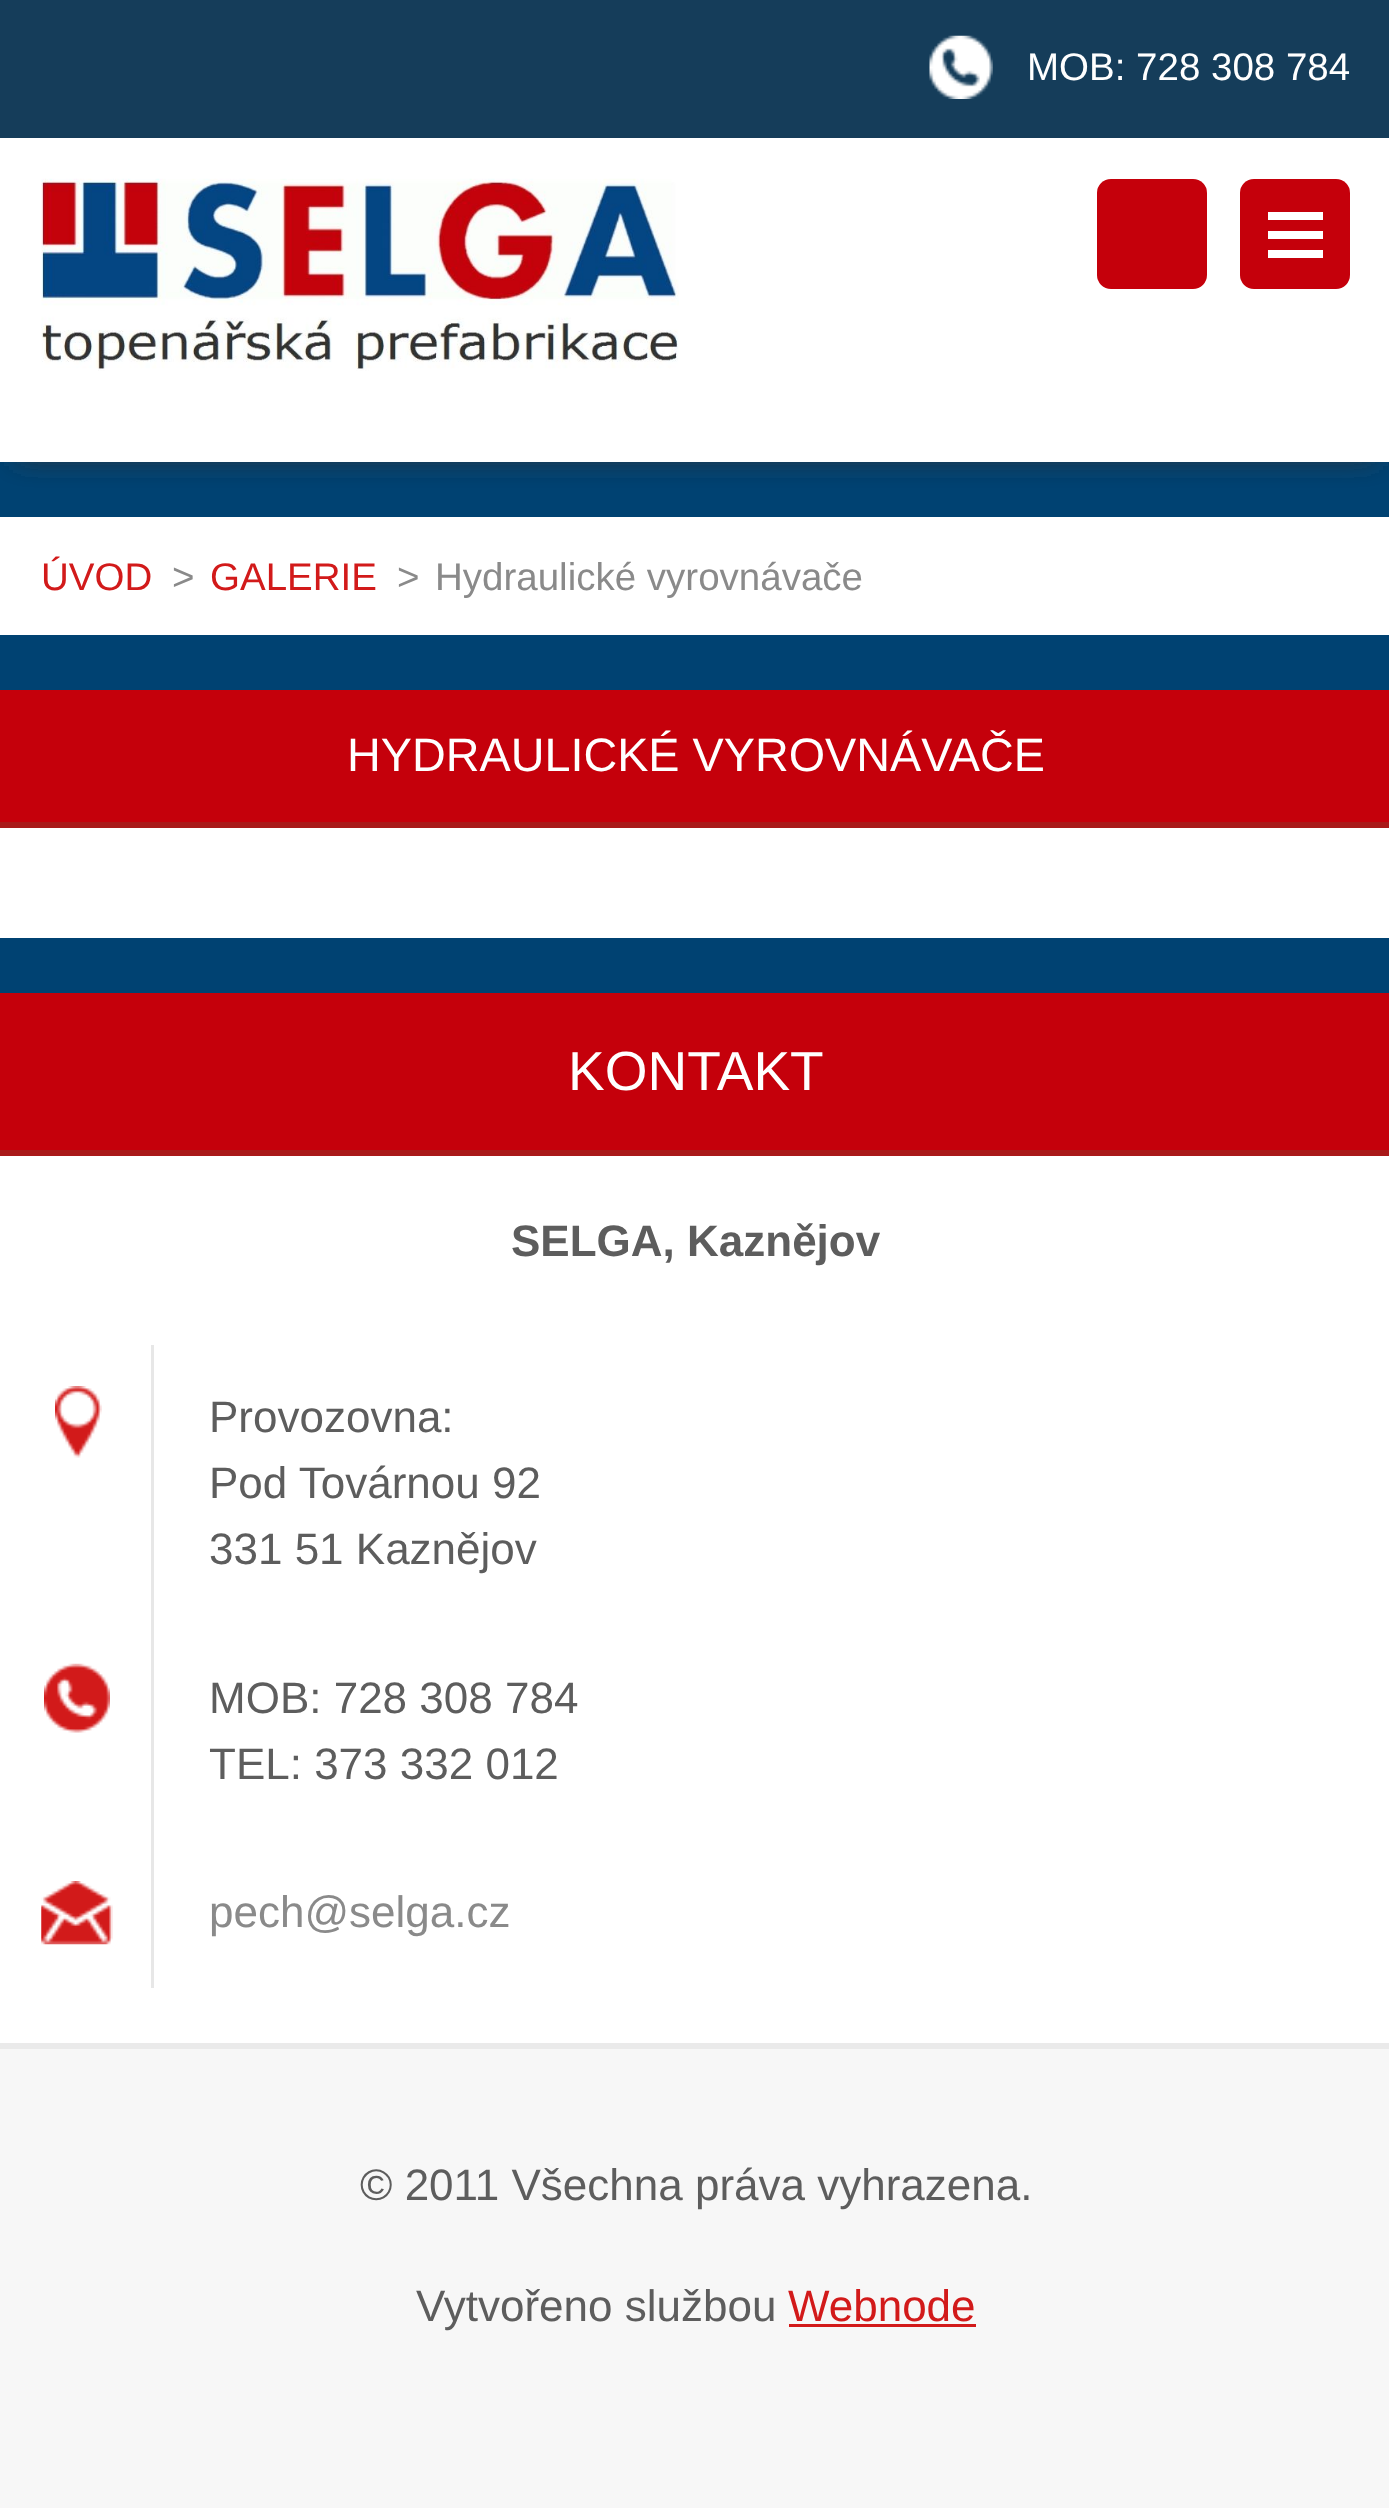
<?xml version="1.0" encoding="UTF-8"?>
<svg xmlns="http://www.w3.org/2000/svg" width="1389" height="2508">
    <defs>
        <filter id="blur1" x="-50%" y="-200%" width="200%" height="500%"><feGaussianBlur stdDeviation="14"/></filter>
    </defs>
    <rect width="100%" height="100%" fill="#F7F7F7"/>
    <rect x="0" y="0" width="1389" height="138" fill="#153D5A"/>
    <image x="929" y="35" width="64" height="64" href="img_01.png"/>
    <text x="1027" y="80" font-family="Liberation Sans" font-size="38.5" fill="#FFFFFF">MOB: 728 308 784</text>
    <image x="0" y="462" width="1389" height="531" href="img_06.png"/>
    <rect x="17" y="165" width="1358" height="292" fill="#353535" filter="url(#blur1)"/>
    <rect x="0" y="138" width="1389" height="324" fill="#FFFFFF"/>
    <image x="41" y="178" width="638" height="193" href="img_02.png"/>
    <rect x="1097" y="179" width="110" height="110" rx="14" fill="#C5000B"/>
    <rect x="1240" y="179" width="110" height="110" rx="14" fill="#C5000B"/>
    <rect x="1268" y="212" width="55" height="8" fill="#FFFFFF"/>
    <rect x="1268" y="231" width="55" height="8" fill="#FFFFFF"/>
    <rect x="1268" y="250" width="55" height="8" fill="#FFFFFF"/>
    <rect x="0" y="517" width="1389" height="118" fill="#FFFFFF"/>
    <text x="41" y="590" font-family="Liberation Sans" font-size="38.5" fill="#D21A1A">ÚVOD</text>
    <text x="172" y="590" font-family="Liberation Sans" font-size="38.5" fill="#8A8A8A">&gt;</text>
    <text x="210" y="590" font-family="Liberation Sans" font-size="38.5" fill="#D21A1A">GALERIE</text>
    <text x="397" y="590" font-family="Liberation Sans" font-size="38.5" fill="#8A8A8A">&gt;</text>
    <text x="435" y="590" font-family="Liberation Sans" font-size="38.5" fill="#8A8A8A">Hydraulické vyrovnávače</text>
    <rect x="0" y="828" width="1389" height="110" fill="#FFFFFF"/>
    <rect x="0" y="690" width="1389" height="132" fill="#C5000B"/>
    <rect x="0" y="822" width="1389" height="6" fill="#A91919"/>
    <text x="347" y="771" font-family="Liberation Sans" font-size="46.75" fill="#FFFFFF">HYDRAULICKÉ VYROVNÁVAČE</text>
    <path d="M 0 2043 V 2049 H 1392 V 998 V 2043 Z" fill="#EAEAEA"/>
    <rect x="0" y="1156" width="1389" height="887" fill="#FFFFFF"/>
    <rect x="0" y="993" width="1389" height="157" fill="#C5000B"/>
    <rect x="0" y="1150" width="1389" height="6" fill="#A91919"/>
    <text x="568" y="1090" font-family="Liberation Sans" font-size="55" fill="#FFFFFF">KONTAKT</text>
    <text x="511" y="1256" font-family="Liberation Sans" font-size="44" font-weight="700" fill="#5D5D5D">SELGA, Kaznějov</text>
    <image x="55" y="1386" width="47" height="72" href="img_03.png"/>
    <rect x="151" y="1345" width="3" height="643" fill="#E7E7E7"/>
    <text font-family="Liberation Sans" font-size="44" fill="#5D5D5D">
        <tspan x="209" y="1432">Provozovna:</tspan>
        <tspan x="209" y="1498">Pod Továrnou 92</tspan>
        <tspan x="209" y="1564">331 51 Kaznějov</tspan>
    </text>
    <image x="44" y="1663" width="66" height="70" href="img_04.png"/>
    <text font-family="Liberation Sans" font-size="44" fill="#5D5D5D">
        <tspan x="209" y="1713">MOB: 728 308 784</tspan>
        <tspan x="209" y="1779">TEL: 373 332 012</tspan>
    </text>
    <image x="41" y="1881" width="72" height="64" href="img_05.png"/>
    <text x="209" y="1927" font-family="Liberation Sans" font-size="44" fill="#8A8A8A">pech@selga.cz</text>
    <text x="360" y="2200" font-family="Liberation Sans" font-size="44" fill="#5D5D5D">© 2011 Všechna práva vyhrazena.</text>
    <text x="416" y="2321" font-family="Liberation Sans" font-size="44" fill="#5D5D5D">Vytvořeno službou</text>
    <text x="788" y="2321" font-family="Liberation Sans" font-size="44" fill="#D21A1A">Webnode</text>
    <rect x="789" y="2324" width="187" height="3" fill="#D21A1A"/>
</svg>
